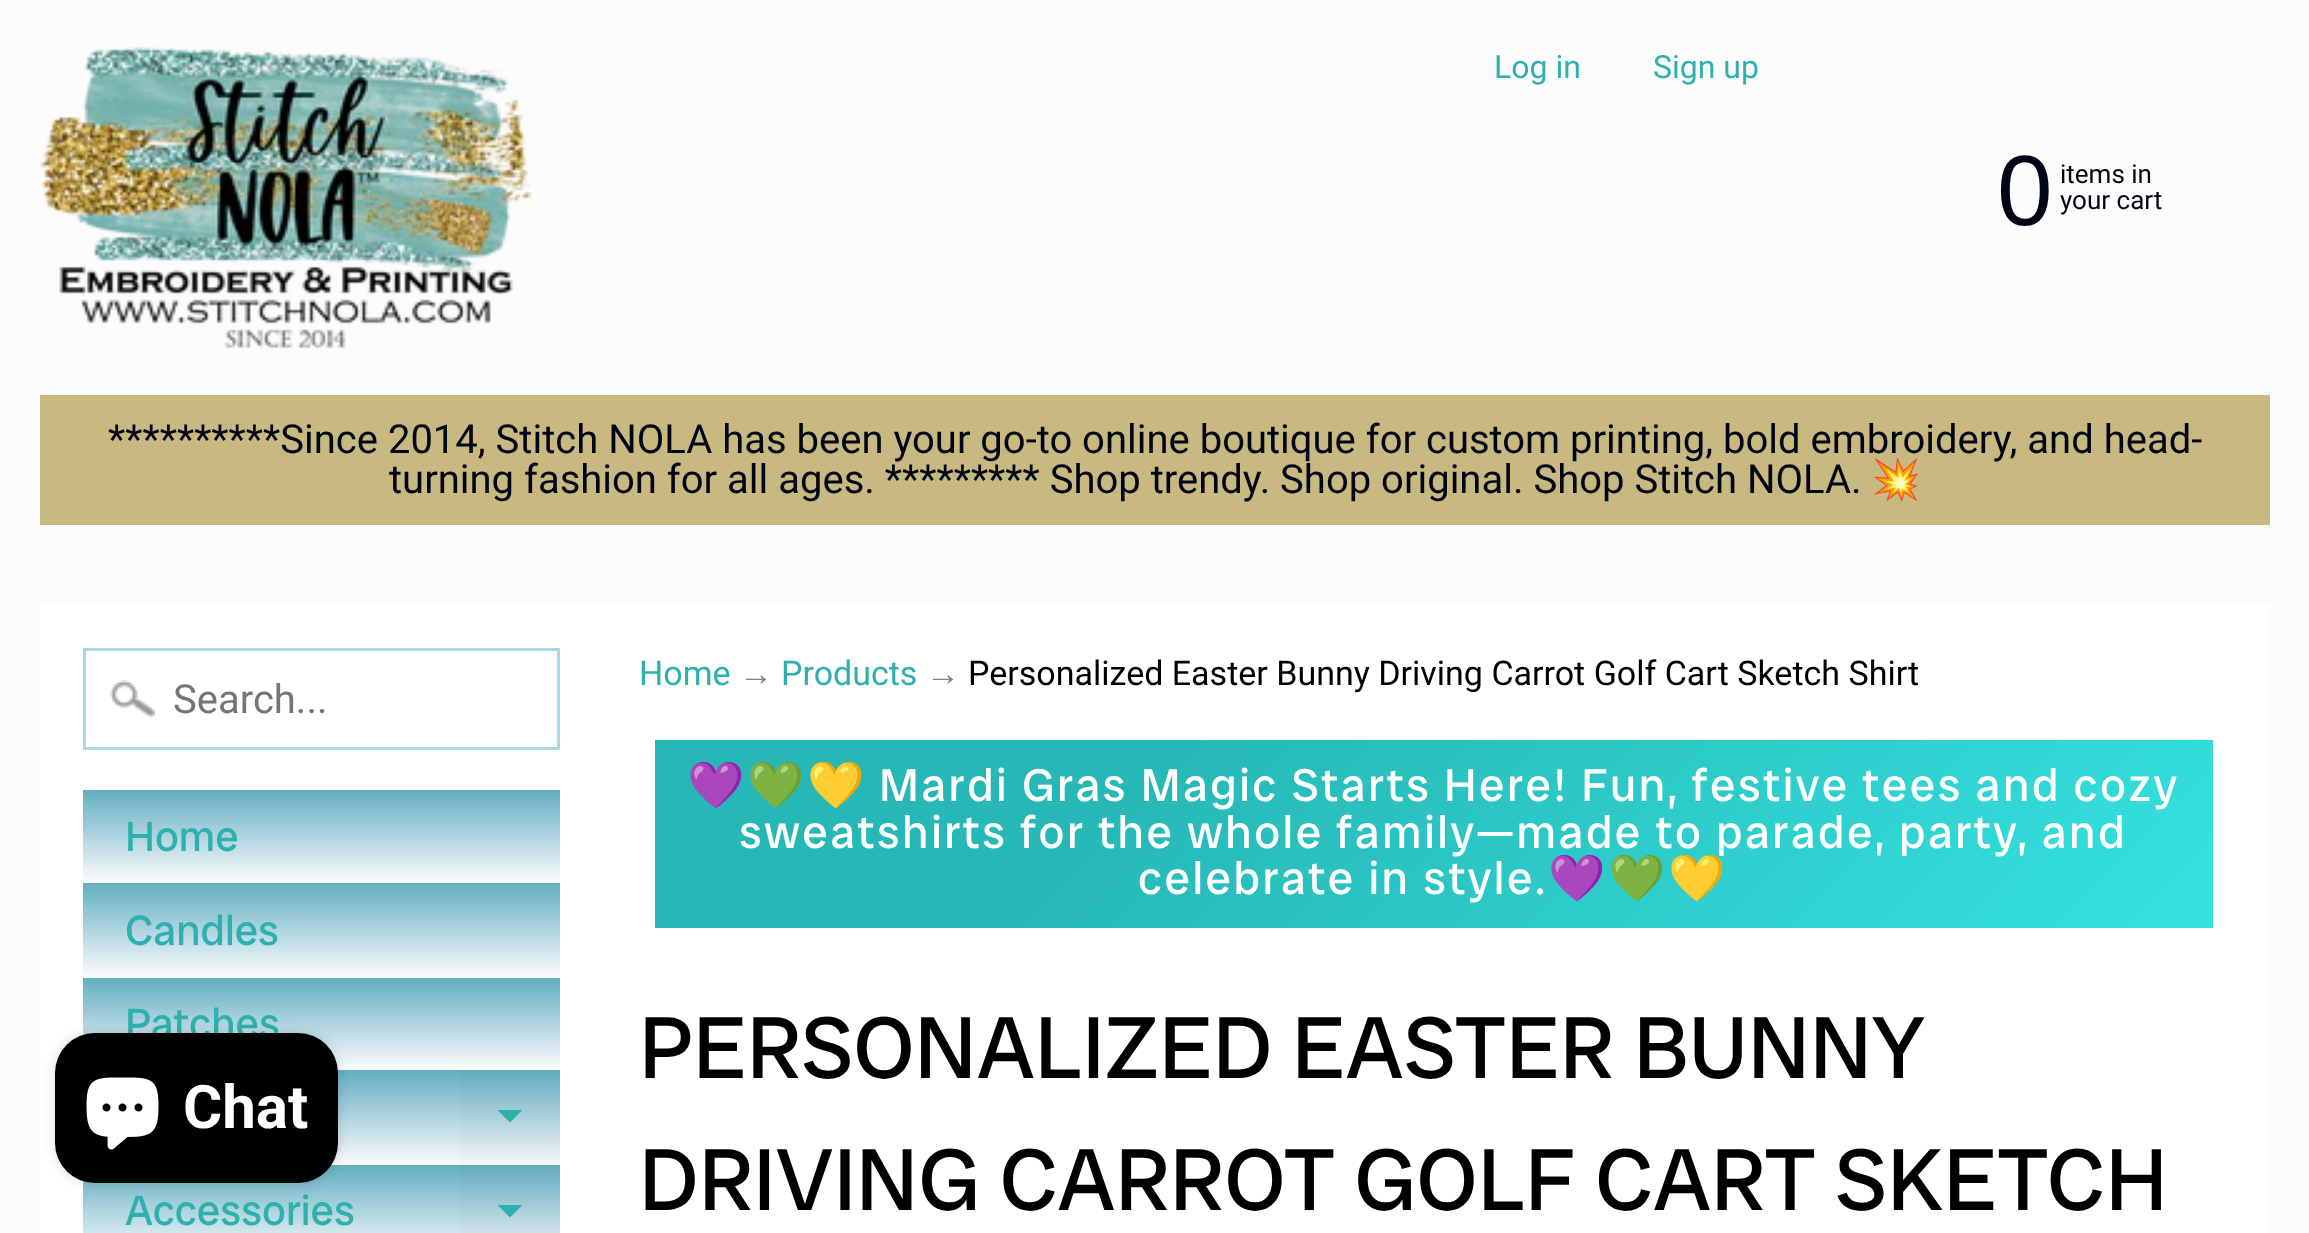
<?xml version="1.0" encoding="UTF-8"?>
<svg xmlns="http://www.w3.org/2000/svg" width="2309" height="1233">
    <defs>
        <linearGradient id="g1" gradientUnits="userSpaceOnUse" x1="321" y1="790" x2="321" y2="883"><stop offset="0" stop-color="#62AEC1"/><stop offset="1" stop-color="#FCFCFC"/></linearGradient>
        <linearGradient id="g2" gradientUnits="userSpaceOnUse" x1="321" y1="883" x2="321" y2="978"><stop offset="0" stop-color="#62AEC1"/><stop offset="1" stop-color="#FCFCFC"/></linearGradient>
        <linearGradient id="g3" gradientUnits="userSpaceOnUse" x1="321" y1="978" x2="321" y2="1070"><stop offset="0" stop-color="#62AEC1"/><stop offset="1" stop-color="#FCFCFC"/></linearGradient>
        <linearGradient id="g4" gradientUnits="userSpaceOnUse" x1="321" y1="1070" x2="321" y2="1165"><stop offset="0" stop-color="#62AEC1"/><stop offset="1" stop-color="#FCFCFC"/></linearGradient>
        <linearGradient id="g5" gradientUnits="userSpaceOnUse" x1="321" y1="1070" x2="321" y2="1165"><stop offset="0" stop-color="#60ABBD"/><stop offset="1" stop-color="#F7F7F7"/></linearGradient>
        <linearGradient id="g6" gradientUnits="userSpaceOnUse" x1="321" y1="1165" x2="321" y2="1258"><stop offset="0" stop-color="#62AEC1"/><stop offset="1" stop-color="#FCFCFC"/></linearGradient>
        <linearGradient id="g7" gradientUnits="userSpaceOnUse" x1="321" y1="1165" x2="321" y2="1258"><stop offset="0" stop-color="#60ABBD"/><stop offset="1" stop-color="#F7F7F7"/></linearGradient>
        <linearGradient id="g8" gradientUnits="userSpaceOnUse" x1="998" y1="398" x2="1870" y2="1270"><stop offset="0.3" stop-color="#26B8B7"/><stop offset="1" stop-color="#35E2E0"/></linearGradient>
        <filter id="blur1" x="-50%" y="-200%" width="200%" height="500%"><feGaussianBlur stdDeviation="6"/></filter>
    </defs>
    <rect width="100%" height="100%" fill="#FCFCFC"/>
    <image x="40" y="47" width="493" height="302" href="img_01.png"/>
    <text x="1494" y="78" font-family="Roboto" font-size="32" fill="#2EB0AF">Log in</text>
    <text x="1653" y="78" font-family="Roboto" font-size="32" fill="#2EB0AF">Sign up</text>
    <text x="1997" y="225" font-family="Liberation Sans" font-size="100" fill="#020515">0</text>
    <text font-family="Roboto" font-size="26" fill="#020515">
        <tspan x="2060" y="183">items in</tspan>
        <tspan x="2060" y="209">your cart</tspan>
    </text>
    <rect x="40" y="395" width="2230" height="130" fill="#C7B97F"/>
    <text x="108" y="453" font-family="Roboto" font-size="40" fill="#020515">**********Since 2014, Stitch NOLA has been your go-to online boutique for custom printing, bold embroidery, and head-</text>
    <text x="389" y="493" font-family="Roboto" font-size="40" fill="#020515">turning fashion for all ages. ********* Shop trendy. Shop original. Shop Stitch NOLA.</text>
    <text x="1871" y="493" font-family="Noto Color Emoji" font-size="40" fill="#020515">💥</text>
    <rect x="40" y="605" width="2230" height="628" fill="#FFFFFF"/>
    <image x="110" y="680" width="45" height="38" href="img_02.png"/>
    <rect x="84.5" y="649.5" width="474" height="99" fill="none" stroke="#AAD9E6" stroke-width="3"/>
    <text x="173" y="713" font-family="Roboto" font-size="40" fill="#757575">Search...</text>
    <rect x="83" y="790" width="477" height="93" fill="url(#g1)"/>
    <text x="125" y="851" font-family="Radio Canada Big" font-size="42.5" fill="#2EB0AF">Home</text>
    <rect x="83" y="883" width="477" height="95" fill="url(#g2)"/>
    <text x="125" y="945" font-family="Radio Canada Big" font-size="42.5" fill="#2EB0AF">Candles</text>
    <rect x="83" y="978" width="477" height="92" fill="url(#g3)"/>
    <text x="125" y="1038" font-family="Radio Canada Big" font-size="42.5" fill="#2EB0AF">Patches</text>
    <rect x="331" y="1070" width="129" height="95" fill="url(#g4)"/>
    <rect x="460" y="1070" width="100" height="95" fill="url(#g5)"/>
    <path d="M 497.5 1110 H 522.5 L 510 1122.5 Z" fill="#2EB0AF"/>
    <rect x="83" y="1165" width="377" height="68" fill="url(#g6)"/>
    <rect x="460" y="1165" width="100" height="68" fill="url(#g7)"/>
    <text x="125" y="1225" font-family="Radio Canada Big" font-size="42.5" fill="#2EB0AF">Accessories</text>
    <path d="M 497.5 1205 H 522.5 L 510 1217.5 Z" fill="#2EB0AF"/>
    <text x="639" y="685" font-family="Roboto" font-size="34" fill="#2EB0AF">Home</text>
    <text x="739" y="685" font-family="Liberation Sans" font-size="34" fill="#808080">→</text>
    <text x="781" y="685" font-family="Roboto" font-size="34" fill="#2EB0AF">Products</text>
    <text x="926" y="685" font-family="Liberation Sans" font-size="34" fill="#808080">→</text>
    <text x="968" y="685" font-family="Roboto" font-size="34" fill="#000000">Personalized Easter Bunny Driving Carrot Golf Cart Sketch Shirt</text>
    <rect x="655" y="740" width="1558" height="188" fill="url(#g8)"/>
    <text x="687" y="801" font-family="Noto Color Emoji" font-size="46.2" letter-spacing="2.5" fill="#FFFFFF">💜💚💛</text>
    <text x="879" y="801" font-family="Radio Canada Big" font-size="46.2" letter-spacing="2.5" fill="#FFFFFF">Mardi Gras Magic Starts Here! Fun, festive tees and cozy</text>
    <text x="739" y="848" font-family="Radio Canada Big" font-size="46.2" letter-spacing="2.5" fill="#FFFFFF">sweatshirts for the whole family—made to parade, party, and</text>
    <text x="1138" y="894" font-family="Radio Canada Big" font-size="46.2" letter-spacing="2.5" fill="#FFFFFF">celebrate in style.</text>
    <text x="1548" y="894" font-family="Noto Color Emoji" font-size="46.2" letter-spacing="2.5" fill="#FFFFFF">💜💚💛</text>
    <text font-family="Radio Canada Big" font-size="88" fill="#000000">
        <tspan x="639" y="1078">PERSONALIZED EASTER BUNNY</tspan>
        <tspan x="639" y="1210">DRIVING CARROT GOLF CART SKETCH</tspan>
    </text>
    <rect x="55" y="1033" width="283" height="150" rx="40" fill="#000000" fill-opacity="0.15" filter="url(#blur1)"/>
    <rect x="55" y="1033" width="283" height="150" rx="40" fill="#000000"/>
    <image x="86" y="1077" width="73" height="73" href="img_03.png"/>
    <text x="183" y="1128" font-family="Roboto" font-size="60" font-weight="700" fill="#FFFFFF">Chat</text>
</svg>
